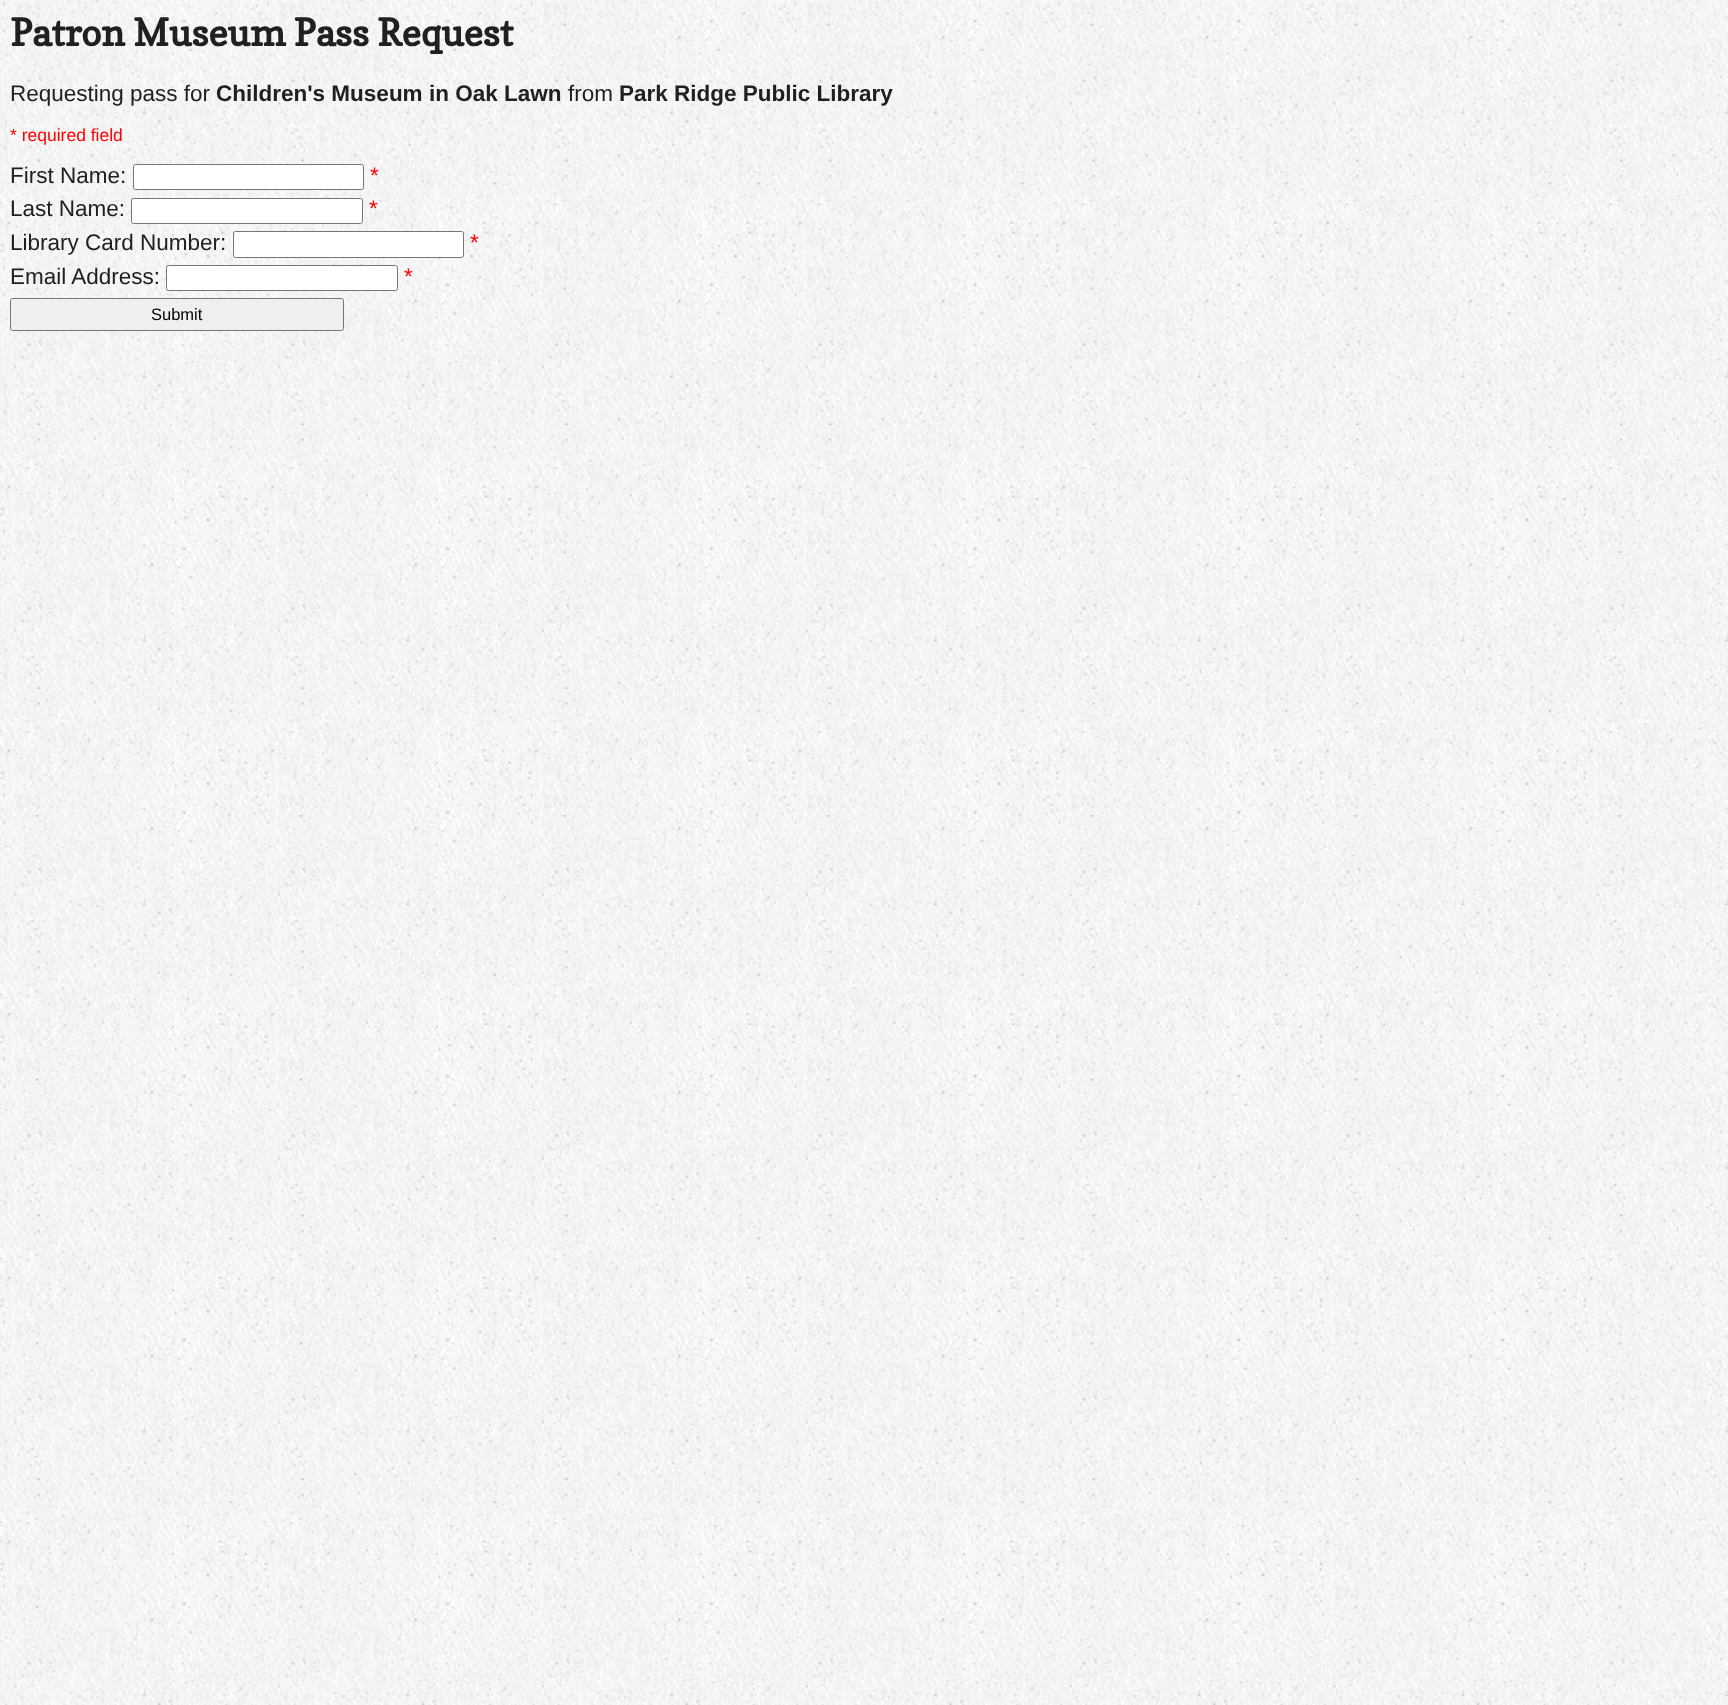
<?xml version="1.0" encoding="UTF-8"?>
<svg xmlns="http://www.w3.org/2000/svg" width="1728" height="1705">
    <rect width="100%" height="100%" fill="#FFFFFF"/>
    <image x="0" y="0" width="1728" height="1705" href="img_01.png"/>
    <text x="10" y="46" font-family="Copse" font-size="37.5" font-weight="700" fill="#202020">Patron Museum Pass Request</text>
    <text x="10" y="101" font-family="Liberation Sans" font-size="22.5" fill="#202020">Requesting pass for</text>
    <text x="216" y="101" font-family="Liberation Sans" font-size="22.5" font-weight="700" fill="#202020">Children's Museum in Oak Lawn</text>
    <text x="568" y="101" font-family="Liberation Sans" font-size="22.5" fill="#202020">from</text>
    <text x="619" y="101" font-family="Liberation Sans" font-size="22.5" font-weight="700" fill="#202020">Park Ridge Public Library</text>
    <text x="10" y="141" font-family="Liberation Sans" font-size="17.5" fill="#FF0000">* required field</text>
    <text x="10" y="183" font-family="Liberation Sans" font-size="22.5" fill="#202020">First Name:</text>
    <rect x="133.5" y="164.5" width="230" height="25" rx="2" fill="#FFFFFF" stroke="#767676"/>
    <text x="370" y="183" font-family="Liberation Sans" font-size="22.5" fill="#FF0000">*</text>
    <text x="10" y="216" font-family="Liberation Sans" font-size="22.5" fill="#202020">Last Name:</text>
    <rect x="131.5" y="198.5" width="231" height="25" rx="2" fill="#FFFFFF" stroke="#767676"/>
    <text x="369" y="216" font-family="Liberation Sans" font-size="22.5" fill="#FF0000">*</text>
    <text x="10" y="250" font-family="Liberation Sans" font-size="22.5" fill="#202020">Library Card Number:</text>
    <rect x="233.5" y="231.5" width="230" height="26" rx="2" fill="#FFFFFF" stroke="#767676"/>
    <text x="470" y="250" font-family="Liberation Sans" font-size="22.5" fill="#FF0000">*</text>
    <text x="10" y="284" font-family="Liberation Sans" font-size="22.5" fill="#202020">Email Address:</text>
    <rect x="166.5" y="265.5" width="231" height="25" rx="2" fill="#FFFFFF" stroke="#767676"/>
    <text x="404" y="284" font-family="Liberation Sans" font-size="22.5" fill="#FF0000">*</text>
    <rect x="10.5" y="298.5" width="333" height="32" rx="2" fill="#EFEFEF" stroke="#767676"/>
    <text x="151" y="320" font-family="Liberation Sans" font-size="16.5" fill="#000000">Submit</text>
</svg>
